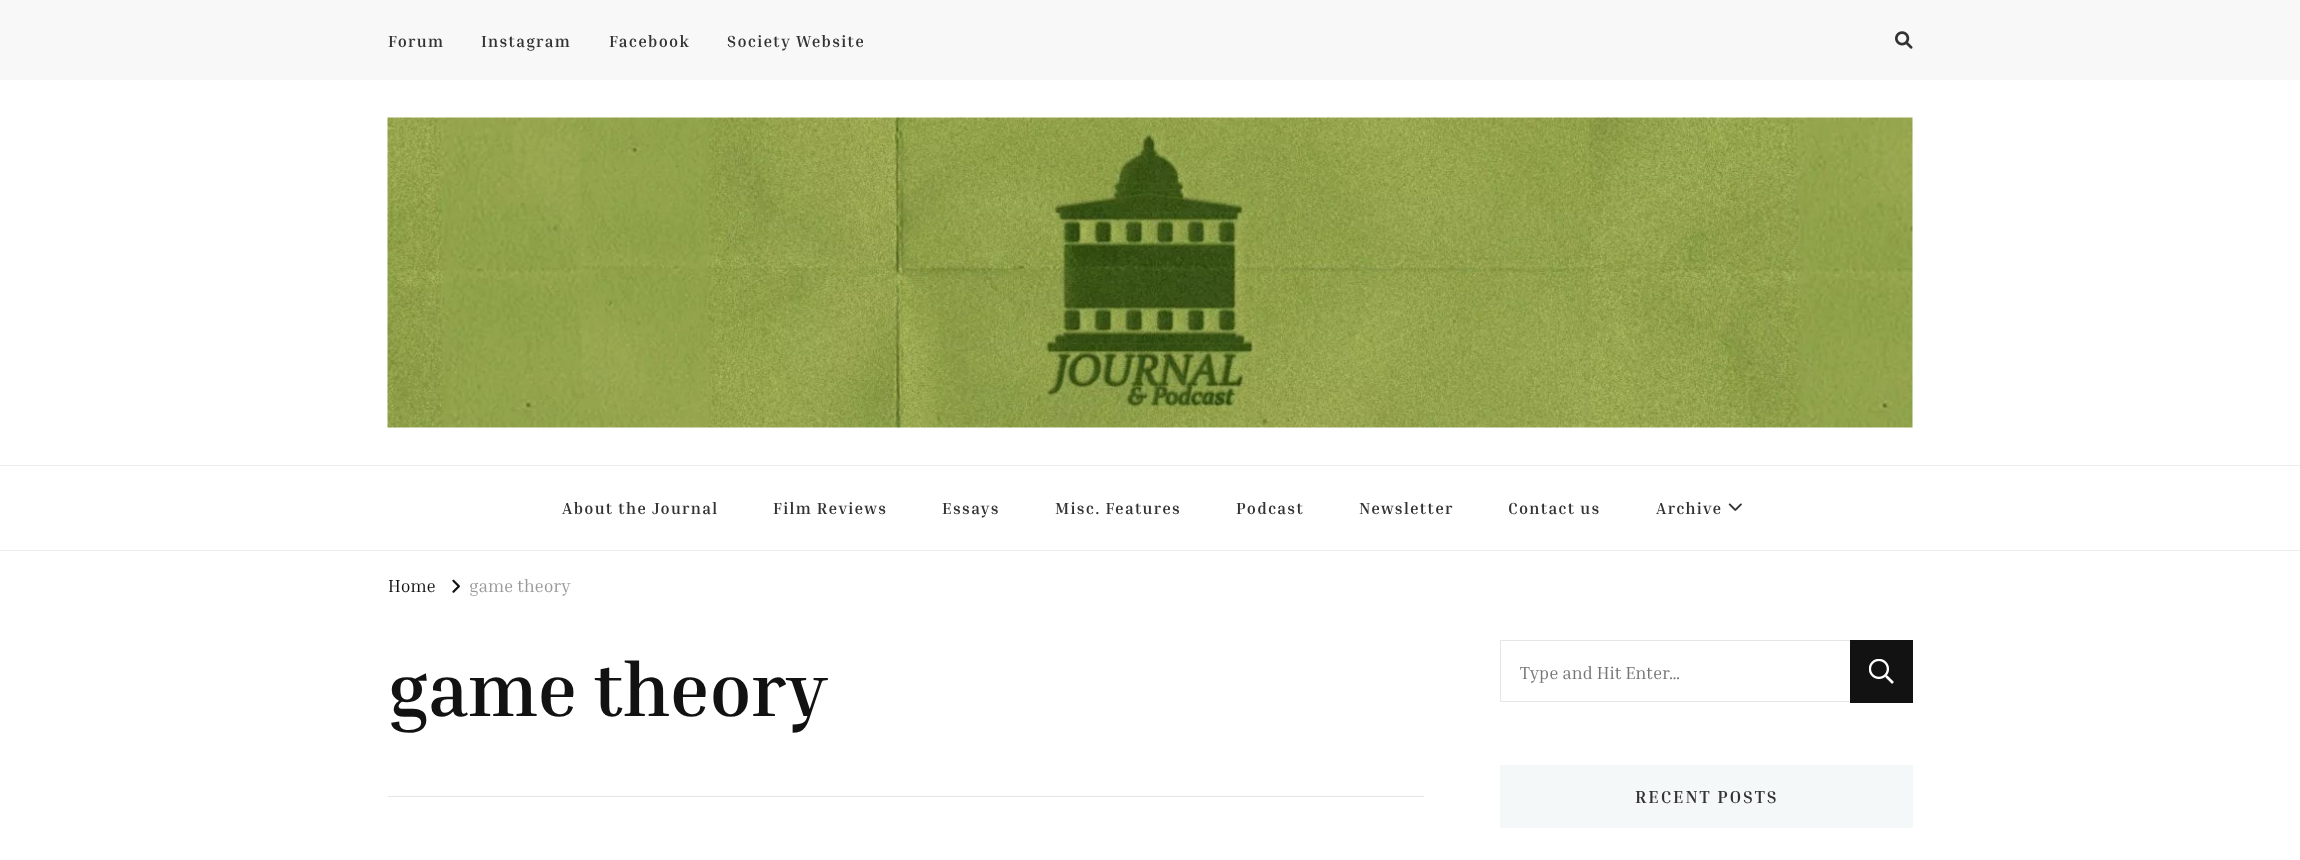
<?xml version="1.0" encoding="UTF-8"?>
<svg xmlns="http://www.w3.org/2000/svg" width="2300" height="860">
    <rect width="100%" height="100%" fill="#FFFFFF"/>
    <rect x="0" y="0" width="2300" height="80" fill="#F8F8F8"/>
    <text x="388" y="47" font-family="Inria Serif" font-size="16.25" font-weight="700" letter-spacing="1.25" fill="#333333">Forum</text>
    <text x="481" y="47" font-family="Inria Serif" font-size="16.25" font-weight="700" letter-spacing="1.25" fill="#333333">Instagram</text>
    <text x="609" y="47" font-family="Inria Serif" font-size="16.25" font-weight="700" letter-spacing="1.25" fill="#333333">Facebook</text>
    <text x="727" y="47" font-family="Inria Serif" font-size="16.25" font-weight="700" letter-spacing="1.25" fill="#333333">Society Website</text>
    <image x="1895" y="31" width="18" height="18" href="img_01.png"/>
    <image x="387" y="117" width="1526" height="311" href="img_02.png"/>
    <rect x="0" y="465" width="2300" height="1" fill="#EDEDED"/>
    <rect x="0" y="550" width="2300" height="1" fill="#EDEDED"/>
    <text x="562" y="514" font-family="Inria Serif" font-size="16.25" font-weight="700" letter-spacing="1.25" fill="#333333">About the Journal</text>
    <text x="773" y="514" font-family="Inria Serif" font-size="16.25" font-weight="700" letter-spacing="1.25" fill="#333333">Film Reviews</text>
    <text x="942" y="514" font-family="Inria Serif" font-size="16.25" font-weight="700" letter-spacing="1.25" fill="#333333">Essays</text>
    <text x="1055" y="514" font-family="Inria Serif" font-size="16.25" font-weight="700" letter-spacing="1.25" fill="#333333">Misc. Features</text>
    <text x="1236" y="514" font-family="Inria Serif" font-size="16.25" font-weight="700" letter-spacing="1.25" fill="#333333">Podcast</text>
    <text x="1359" y="514" font-family="Inria Serif" font-size="16.25" font-weight="700" letter-spacing="1.25" fill="#333333">Newsletter</text>
    <text x="1508" y="514" font-family="Inria Serif" font-size="16.25" font-weight="700" letter-spacing="1.25" fill="#333333">Contact us</text>
    <text x="1656" y="514" font-family="Inria Serif" font-size="16.25" font-weight="700" letter-spacing="1.25" fill="#333333">Archive</text>
    <image x="1728" y="503" width="14" height="8" href="img_03.png"/>
    <text x="388" y="592" font-family="Inria Serif" font-size="17.5" fill="#121212">Home</text>
    <image x="452" y="579" width="8" height="14" href="img_04.png"/>
    <text x="469" y="592" font-family="Inria Serif" font-size="17.5" fill="#999999">game theory</text>
    <rect x="388" y="796" width="1036" height="1" fill="#E6E6E6"/>
    <text x="388" y="716" font-family="Inria Serif" font-size="75" font-weight="700" fill="#121212">game theory</text>
    <path d="M 1500 640 H 1850 V 641 H 1501 Z" fill="#E6E6E6"/>
    <path d="M 1850 702 H 1500 L 1501 701 H 1850 Z" fill="#E6E6E6"/>
    <path d="M 1500 702 V 640 L 1501 641 V 701 Z" fill="#000000" fill-opacity="0.1"/>
    <text x="1520" y="679" font-family="Inria Serif" font-size="17.5" fill="#757575">Type and Hit Enter…</text>
    <rect x="1850" y="640" width="63" height="63" fill="#121212"/>
    <image x="1869" y="659" width="25" height="25" href="img_05.png"/>
    <rect x="1500" y="765" width="413" height="63" fill="#F4F8F8"/>
    <text x="1635" y="803" font-family="Inria Serif" font-size="17.5" font-weight="700" letter-spacing="1.9" fill="#333333">RECENT POSTS</text>
</svg>
